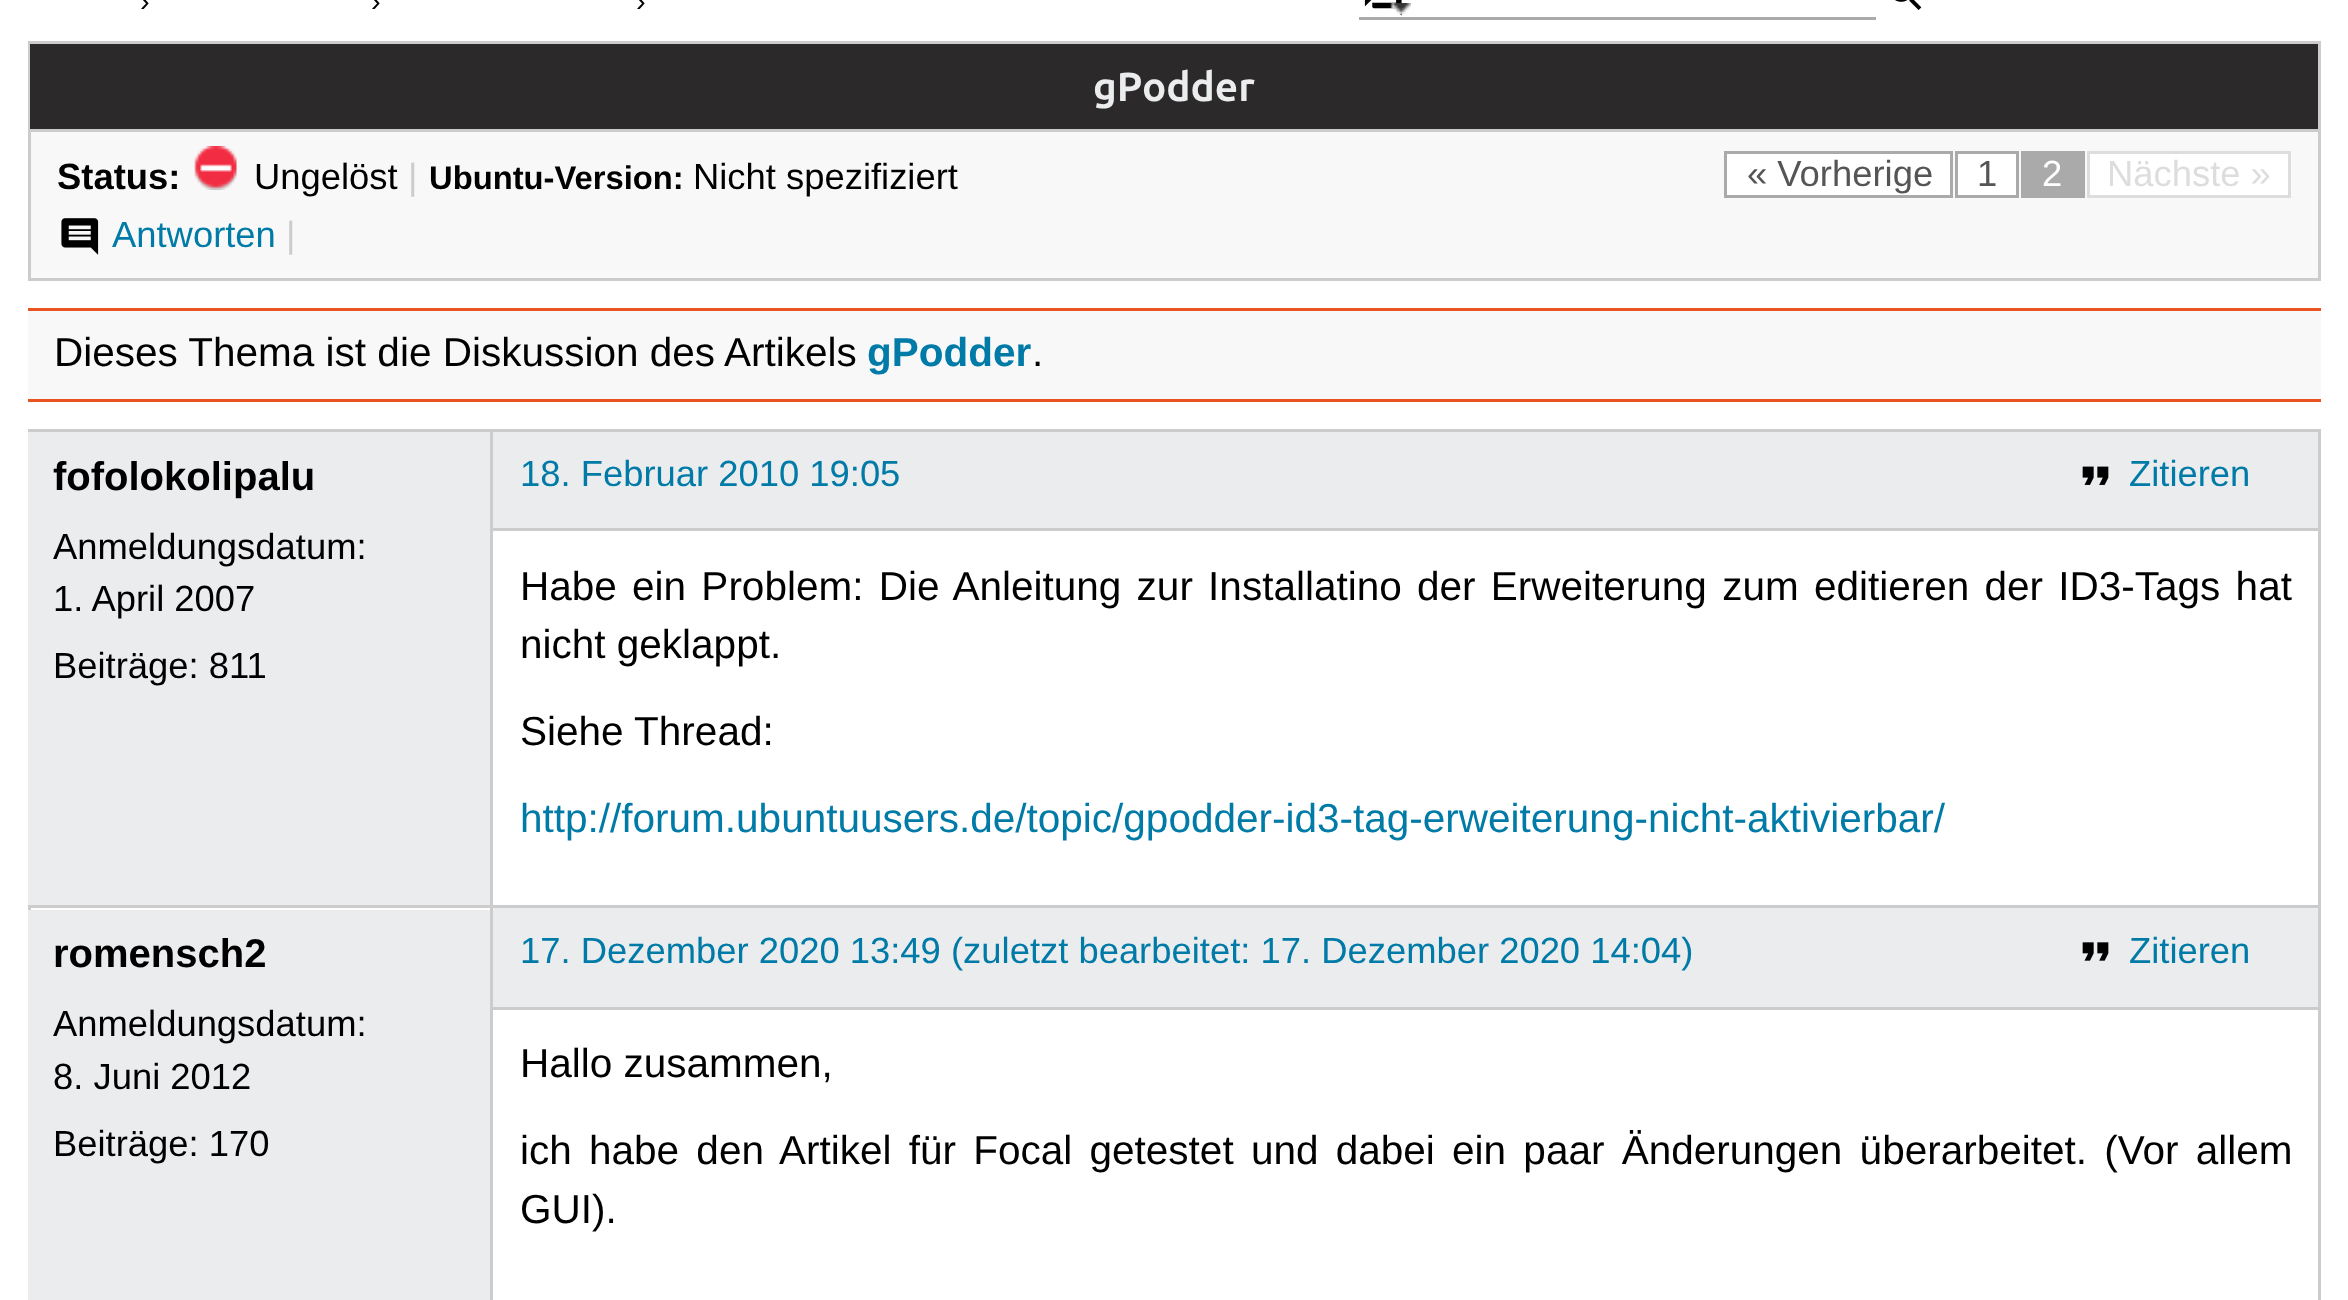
<?xml version="1.0" encoding="UTF-8"?>
<svg xmlns="http://www.w3.org/2000/svg" width="2348" height="1300">
    <rect width="100%" height="100%" fill="#FFFFFF"/>
    <text x="140" y="11" font-family="Liberation Sans" font-size="29" fill="#000000">›</text>
    <text x="371" y="11" font-family="Liberation Sans" font-size="29" fill="#000000">›</text>
    <text x="636" y="11" font-family="Liberation Sans" font-size="29" fill="#000000">›</text>
    <image x="1364" y="0" width="38" height="16" href="img_01.png"/>
    <rect x="1359" y="17" width="517" height="3" fill="#AAAAAA"/>
    <image x="1895" y="0" width="27" height="10" href="img_02.png"/>
    <image x="1390" y="3" width="21" height="11" href="img_03.png"/>
    <rect x="31" y="132" width="2287" height="146" fill="#F8F8F8"/>
    <rect x="29.5" y="42.5" width="2290" height="237" fill="none" stroke="#CCCCCC" stroke-width="3"/>
    <rect x="30" y="44" width="2288" height="85" fill="#2B2929"/>
    <rect x="30" y="129" width="2288" height="3" fill="#CCCCCC"/>
    <text x="1093" y="101" font-family="Ubuntu" font-size="40.5" font-weight="700" fill="#EAECEE">gPodder</text>
    <text x="57" y="189" font-family="Liberation Sans" font-size="36.4" font-weight="700" fill="#000000">Status:</text>
    <image x="194" y="146" width="43" height="44" href="img_04.png"/>
    <text x="254" y="189" font-family="Liberation Sans" font-size="36.4" fill="#000000">Ungelöst</text>
    <text x="408" y="189" font-family="Liberation Sans" font-size="36.4" fill="#CCCCCC">|</text>
    <text x="429" y="189" font-family="Liberation Sans" font-size="32.75" font-weight="700" fill="#000000">Ubuntu-Version:</text>
    <text x="693" y="189" font-family="Liberation Sans" font-size="36.4" fill="#000000">Nicht spezifiziert</text>
    <rect x="1725.5" y="152.5" width="226" height="44" fill="#FFFFFF" stroke="#AAAAAA" stroke-width="3"/>
    <text x="1747" y="186" font-family="Liberation Sans" font-size="36.4" fill="#555555">« Vorherige</text>
    <rect x="1956.5" y="152.5" width="61" height="44" fill="#FFFFFF" stroke="#AAAAAA" stroke-width="3"/>
    <text x="1977" y="186" font-family="Liberation Sans" font-size="36.4" fill="#555555">1</text>
    <rect x="2021" y="151" width="64" height="47" fill="#AAAAAA"/>
    <text x="2042" y="186" font-family="Liberation Sans" font-size="36.4" fill="#FFFFFF">2</text>
    <rect x="2088.5" y="152.5" width="201" height="44" fill="#FFFFFF" stroke="#DDDDDD" stroke-width="3"/>
    <text x="2107" y="186" font-family="Liberation Sans" font-size="36.4" fill="#DDDDDD">Nächste »</text>
    <image x="61" y="218" width="38" height="37" href="img_05.png"/>
    <text x="112" y="247" font-family="Liberation Sans" font-size="36.4" fill="#007AA6">Antworten</text>
    <text x="286" y="247" font-family="Liberation Sans" font-size="36.4" fill="#CCCCCC">|</text>
    <rect x="28" y="311" width="2293" height="88" fill="#F8F8F8"/>
    <rect x="28" y="308" width="2293" height="3" fill="#E95420"/>
    <rect x="28" y="399" width="2293" height="3" fill="#E95420"/>
    <text x="54" y="366" font-family="Liberation Sans" font-size="40.5" fill="#000000">Dieses Thema ist die Diskussion des Artikels</text>
    <text x="867" y="366" font-family="Liberation Sans" font-size="40.5" font-weight="700" fill="#007AA6">gPodder</text>
    <text x="1032" y="366" font-family="Liberation Sans" font-size="40.5" fill="#000000">.</text>
    <rect x="28" y="429" width="2293" height="3" fill="#CCCCCC"/>
    <rect x="2318" y="429" width="3" height="871" fill="#CCCCCC"/>
    <rect x="28" y="429" width="3" height="481" fill="#CCCCCC"/>
    <rect x="28" y="432" width="462" height="473" fill="#EAECEE"/>
    <text x="53" y="490" font-family="Liberation Sans" font-size="40" font-weight="700" fill="#000000">fofolokolipalu</text>
    <text font-family="Liberation Sans" font-size="36.4" fill="#000000">
        <tspan x="53" y="559">Anmeldungsdatum:</tspan>
        <tspan x="53" y="611">1. April 2007</tspan>
        <tspan x="53" y="678">Beiträge: 811</tspan>
    </text>
    <rect x="493" y="432" width="1825" height="96" fill="#EAECEE"/>
    <rect x="492" y="528" width="1826" height="3" fill="#CCCCCC"/>
    <text x="520" y="486" font-family="Liberation Sans" font-size="36.4" fill="#007AA6">18. Februar 2010 19:05</text>
    <image x="2082" y="466" width="27" height="19" href="img_06.png"/>
    <text x="2129" y="486" font-family="Liberation Sans" font-size="36.4" fill="#007AA6">Zitieren</text>
    <text font-family="Liberation Sans" font-size="40.5" fill="#000000">
        <tspan x="520" y="600" word-spacing="4">Habe ein Problem: Die Anleitung zur Installatino der Erweiterung zum editieren der ID3-Tags hat</tspan>
        <tspan x="520" y="658">nicht geklappt.</tspan>
    </text>
    <text x="520" y="745" font-family="Liberation Sans" font-size="40.5" fill="#000000">Siehe Thread:</text>
    <text x="520" y="832" font-family="Liberation Sans" font-size="40.5" fill="#007AA6">http://forum.ubuntuusers.de/topic/gpodder-id3-tag-erweiterung-nicht-aktivierbar/</text>
    <rect x="28" y="905" width="2293" height="3" fill="#CCCCCC"/>
    <rect x="492" y="1007" width="1826" height="3" fill="#CCCCCC"/>
    <rect x="490" y="429" width="3" height="871" fill="#CCCCCC"/>
    <rect x="28" y="910" width="462" height="390" fill="#EAECEE"/>
    <text x="53" y="967" font-family="Liberation Sans" font-size="40" font-weight="700" fill="#000000">romensch2</text>
    <text font-family="Liberation Sans" font-size="36.4" fill="#000000">
        <tspan x="53" y="1036">Anmeldungsdatum:</tspan>
        <tspan x="53" y="1089">8. Juni 2012</tspan>
        <tspan x="53" y="1156">Beiträge: 170</tspan>
    </text>
    <rect x="493" y="908" width="1825" height="99" fill="#EAECEE"/>
    <text x="520" y="963" font-family="Liberation Sans" font-size="36.4" fill="#007AA6">17. Dezember 2020 13:49</text>
    <text x="951" y="963" font-family="Liberation Sans" font-size="36.4" fill="#007AA6">(zuletzt bearbeitet: 17. Dezember 2020 14:04)</text>
    <image x="2082" y="942" width="27" height="19" href="img_07.png"/>
    <text x="2129" y="963" font-family="Liberation Sans" font-size="36.4" fill="#007AA6">Zitieren</text>
    <text x="520" y="1077" font-family="Liberation Sans" font-size="40.5" fill="#000000">Hallo zusammen,</text>
    <text font-family="Liberation Sans" font-size="40.5" fill="#000000">
        <tspan x="520" y="1164" word-spacing="6">ich habe den Artikel für Focal getestet und dabei ein paar Änderungen überarbeitet. (Vor allem</tspan>
        <tspan x="520" y="1223">GUI).</tspan>
    </text>
</svg>
